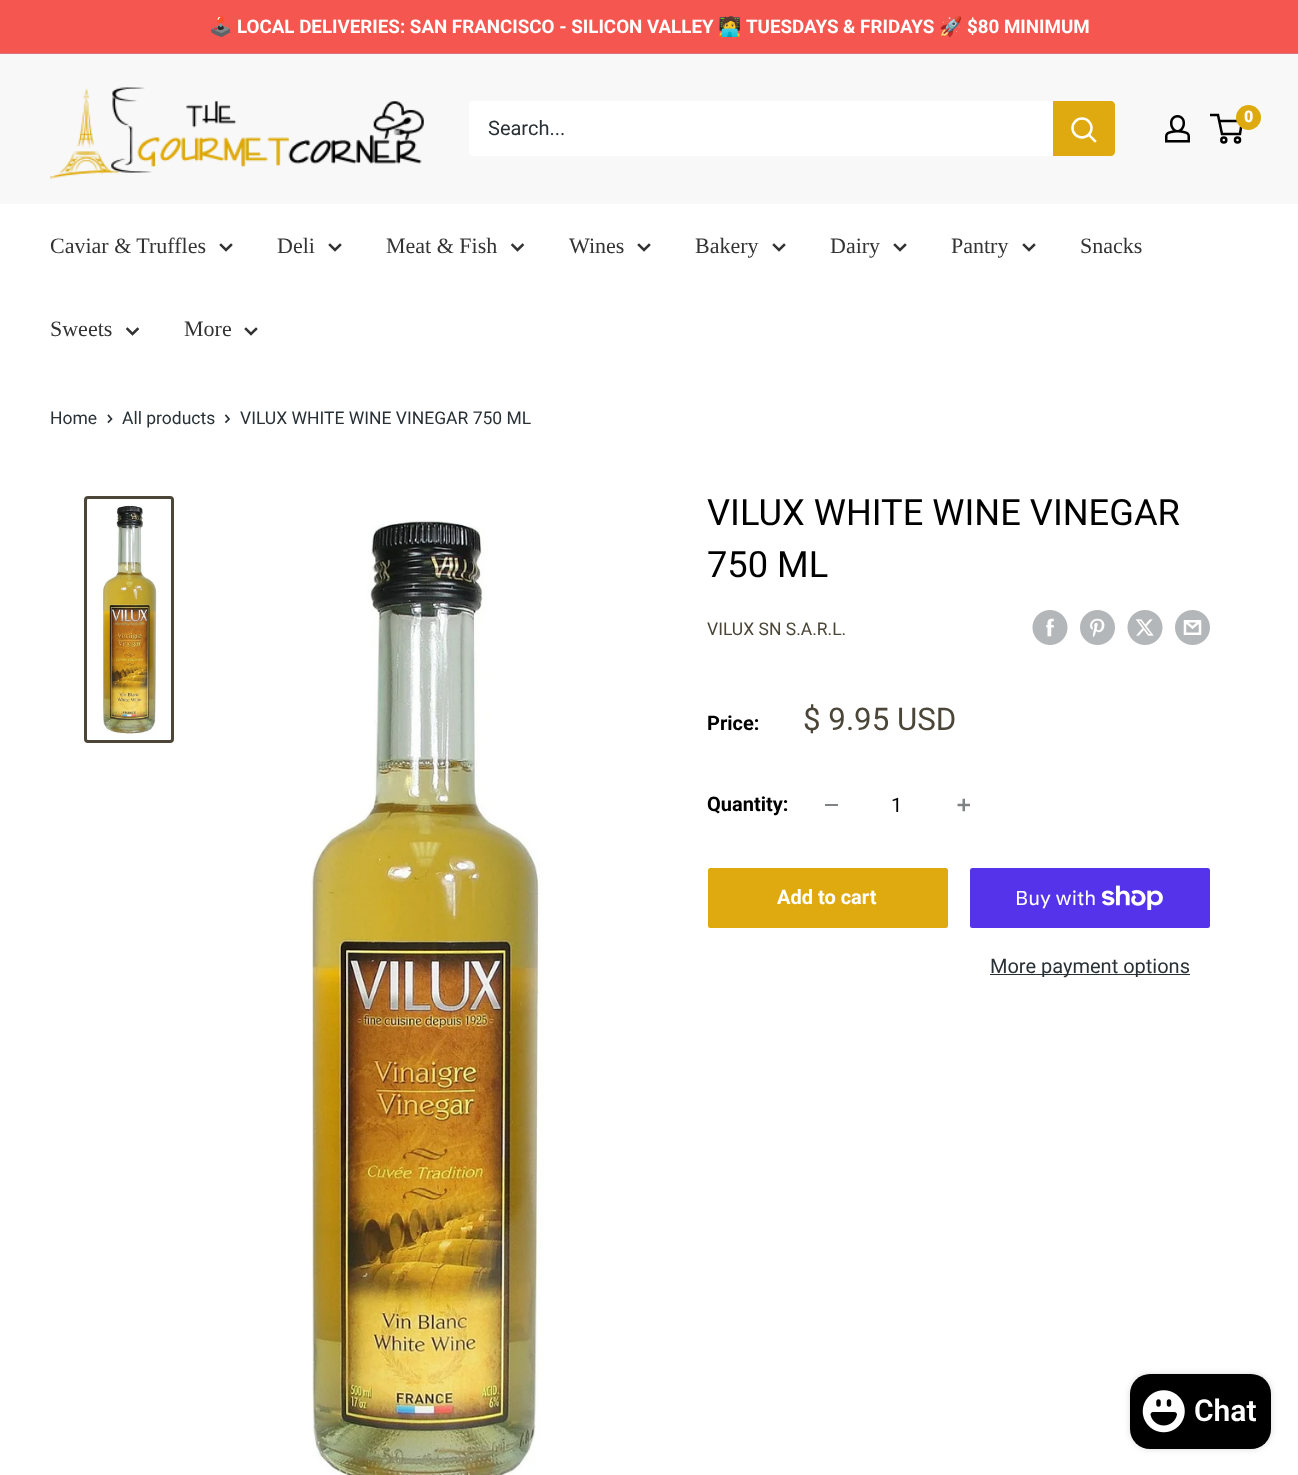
<?xml version="1.0" encoding="UTF-8"?>
<svg xmlns="http://www.w3.org/2000/svg" width="1298" height="1475">
    <defs>
        <filter id="blur1" x="-50%" y="-200%" width="200%" height="500%"><feGaussianBlur stdDeviation="3"/></filter>
    </defs>
    <rect width="100%" height="100%" fill="#FFFFFF"/>
    <rect x="0" y="0" width="1298" height="53" fill="#F55750"/>
    <rect x="0" y="53" width="1298" height="1" fill="#DC7180"/>
    <text x="209" y="33" font-family="Noto Color Emoji" font-size="18.75" font-weight="700" fill="#FFFFFF">🕹️</text>
    <text x="237" y="33" font-family="Roboto" font-size="18.75" font-weight="700" fill="#FFFFFF">LOCAL DELIVERIES: SAN FRANCISCO - SILICON VALLEY</text>
    <text x="718" y="33" font-family="Noto Color Emoji" font-size="18.75" font-weight="700" fill="#FFFFFF">🧑‍💻</text>
    <text x="746" y="33" font-family="Roboto" font-size="18.75" font-weight="700" fill="#FFFFFF">TUESDAYS &amp; FRIDAYS</text>
    <text x="939" y="33" font-family="Noto Color Emoji" font-size="18.75" font-weight="700" fill="#FFFFFF">🚀</text>
    <text x="967" y="33" font-family="Roboto" font-size="18.75" font-weight="700" fill="#FFFFFF">$80 MINIMUM</text>
    <rect x="0" y="54" width="1298" height="150" fill="#F8F8F8"/>
    <image x="50" y="87" width="374" height="92" href="img_01.png"/>
    <image x="1165" y="115" width="25" height="28" href="img_02.png"/>
    <circle cx="1223.8" cy="140" r="2.5" fill="none" stroke="#000000" stroke-width="2.5"/>
    <circle cx="1237.5" cy="140" r="2.5" fill="none" stroke="#000000" stroke-width="2.5"/>
    <path d="M 1219 121 H 1242 L 1240 134 H 1222 L 1218 115 H 1210" fill="none" stroke="#000000" stroke-width="2.5"/>
    <circle cx="1248.5" cy="117.5" r="12.5" fill="#DFAA10"/>
    <text x="1244" y="122" font-family="Roboto" font-size="16" font-weight="900" fill="#FFFFFF">0</text>
    <rect x="469" y="101" width="646" height="55" rx="4" fill="#FFFFFF"/>
    <text x="488" y="135" font-family="Roboto" font-size="20" fill="#293136">Search...</text>
    <path d="M 1053 101 H 1111 C 1113 101 1115 103 1115 105 V 152 C 1115 154 1113 156 1111 156 H 1053 Z" fill="#DFAA10"/>
    <path d="M 1095 141 L 1089 135" fill="none" stroke="#FFFFFF" stroke-width="2.5" stroke-linecap="square"/>
    <circle cx="1082" cy="128" r="9.5" fill="none" stroke="#FFFFFF" stroke-width="2.5"/>
    <text x="50" y="253" font-family="Liberation Serif" font-size="22" fill="#333333">Caviar &amp; Truffles</text>
    <path d="M 231 245 L 226 250 L 221 245" fill="none" stroke="#333333" stroke-width="2.5" stroke-linecap="square"/>
    <text x="277" y="253" font-family="Liberation Serif" font-size="22" fill="#333333">Deli</text>
    <path d="M 340 245 L 335 250 L 330 245" fill="none" stroke="#333333" stroke-width="2.5" stroke-linecap="square"/>
    <text x="386" y="253" font-family="Liberation Serif" font-size="22" fill="#333333">Meat &amp; Fish</text>
    <path d="M 522.5 245 L 517.5 250 L 512.5 245" fill="none" stroke="#333333" stroke-width="2.5" stroke-linecap="square"/>
    <text x="569" y="253" font-family="Liberation Serif" font-size="22" fill="#333333">Wines</text>
    <path d="M 649 245 L 644 250 L 639 245" fill="none" stroke="#333333" stroke-width="2.5" stroke-linecap="square"/>
    <text x="695" y="253" font-family="Liberation Serif" font-size="22" fill="#333333">Bakery</text>
    <path d="M 784 245 L 779 250 L 774 245" fill="none" stroke="#333333" stroke-width="2.5" stroke-linecap="square"/>
    <text x="830" y="253" font-family="Liberation Serif" font-size="22" fill="#333333">Dairy</text>
    <path d="M 905 245 L 900 250 L 895 245" fill="none" stroke="#333333" stroke-width="2.5" stroke-linecap="square"/>
    <text x="951" y="253" font-family="Liberation Serif" font-size="22" fill="#333333">Pantry</text>
    <path d="M 1034 245 L 1029 250 L 1024 245" fill="none" stroke="#333333" stroke-width="2.5" stroke-linecap="square"/>
    <text x="1080" y="253" font-family="Liberation Serif" font-size="22" fill="#333333">Snacks</text>
    <text x="50" y="336" font-family="Liberation Serif" font-size="22" fill="#333333">Sweets</text>
    <path d="M 137.5 329 L 132.5 334 L 127.5 329" fill="none" stroke="#333333" stroke-width="2.5" stroke-linecap="square"/>
    <text x="184" y="336" font-family="Liberation Serif" font-size="22" fill="#333333">More</text>
    <path d="M 256 329 L 251 334 L 246 329" fill="none" stroke="#333333" stroke-width="2.5" stroke-linecap="square"/>
    <text x="50" y="424" font-family="Roboto" font-size="17.5" fill="#293136">Home</text>
    <path d="M 108.5 415.5 L 111.5 419 L 108.5 422" fill="none" stroke="#293136" stroke-width="1.7" stroke-linecap="square"/>
    <text x="122" y="424" font-family="Roboto" font-size="17.5" fill="#293136">All products</text>
    <path d="M 226 415.5 L 229 419 L 226 422" fill="none" stroke="#293136" stroke-width="1.7" stroke-linecap="square"/>
    <text x="240" y="424" font-family="Roboto" font-size="17.5" fill="#293136">VILUX WHITE WINE VINEGAR 750 ML</text>
    <rect x="85.5" y="497.5" width="87" height="244" rx="2.5" fill="none" stroke="#4B4638" stroke-width="3"/>
    <image x="103" y="505" width="55" height="229" href="img_03.png"/>
    <image x="309" y="520" width="235" height="955" href="img_04.png"/>
    <text font-family="Roboto" font-size="36.25" fill="#000000">
        <tspan x="707" y="525">VILUX WHITE WINE VINEGAR</tspan>
        <tspan x="707" y="577">750 ML</tspan>
    </text>
    <text x="707" y="635" font-family="Roboto" font-size="17.5" fill="#4B4638">VILUX SN S.A.R.L.</text>
    <image x="1032" y="610" width="36" height="35" href="img_05.png"/>
    <image x="1080" y="610" width="35" height="35" href="img_06.png"/>
    <image x="1127" y="610" width="36" height="35" href="img_07.png"/>
    <image x="1175" y="610" width="35" height="35" href="img_08.png"/>
    <text x="707" y="730" font-family="Roboto" font-size="20" font-weight="700" fill="#000000">Price:</text>
    <text x="803" y="730" font-family="Roboto" font-size="31.25" fill="#4B4638">$ 9.95 USD</text>
    <text x="707" y="811" font-family="Roboto" font-size="20" font-weight="700" fill="#000000">Quantity:</text>
    <rect x="825" y="804" width="13" height="2" fill="#7F8386"/>
    <text x="891" y="812" font-family="Roboto" font-size="20" fill="#000000">1</text>
    <image x="957" y="798" width="13" height="14" href="img_09.png"/>
    <rect x="708" y="868" width="240" height="60" rx="2.5" fill="#DFAA10"/>
    <text x="777" y="904" font-family="Roboto" font-size="20" font-weight="700" fill="#FFFFFF">Add to cart</text>
    <rect x="970" y="868" width="240" height="60" rx="2.5" fill="#5433EB"/>
    <text x="1015" y="905" font-family="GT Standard" font-size="20" fill="#FFFFFF">Buy with</text>
    <image x="1101" y="885" width="62" height="25" href="img_10.png"/>
    <rect x="990" y="974" width="200" height="1" fill="#293136"/>
    <text x="990" y="973" font-family="Roboto" font-size="20" fill="#293136">More payment options</text>
    <rect x="1130" y="1374" width="141" height="75" rx="20" fill="#000000" fill-opacity="0.15" filter="url(#blur1)"/>
    <rect x="1130" y="1374" width="141" height="75" rx="20" fill="#000000"/>
    <image x="1142" y="1390" width="43" height="43" href="img_11.png"/>
    <text x="1194" y="1421" font-family="Roboto" font-size="30" font-weight="600" fill="#FFFFFF">Chat</text>
</svg>
